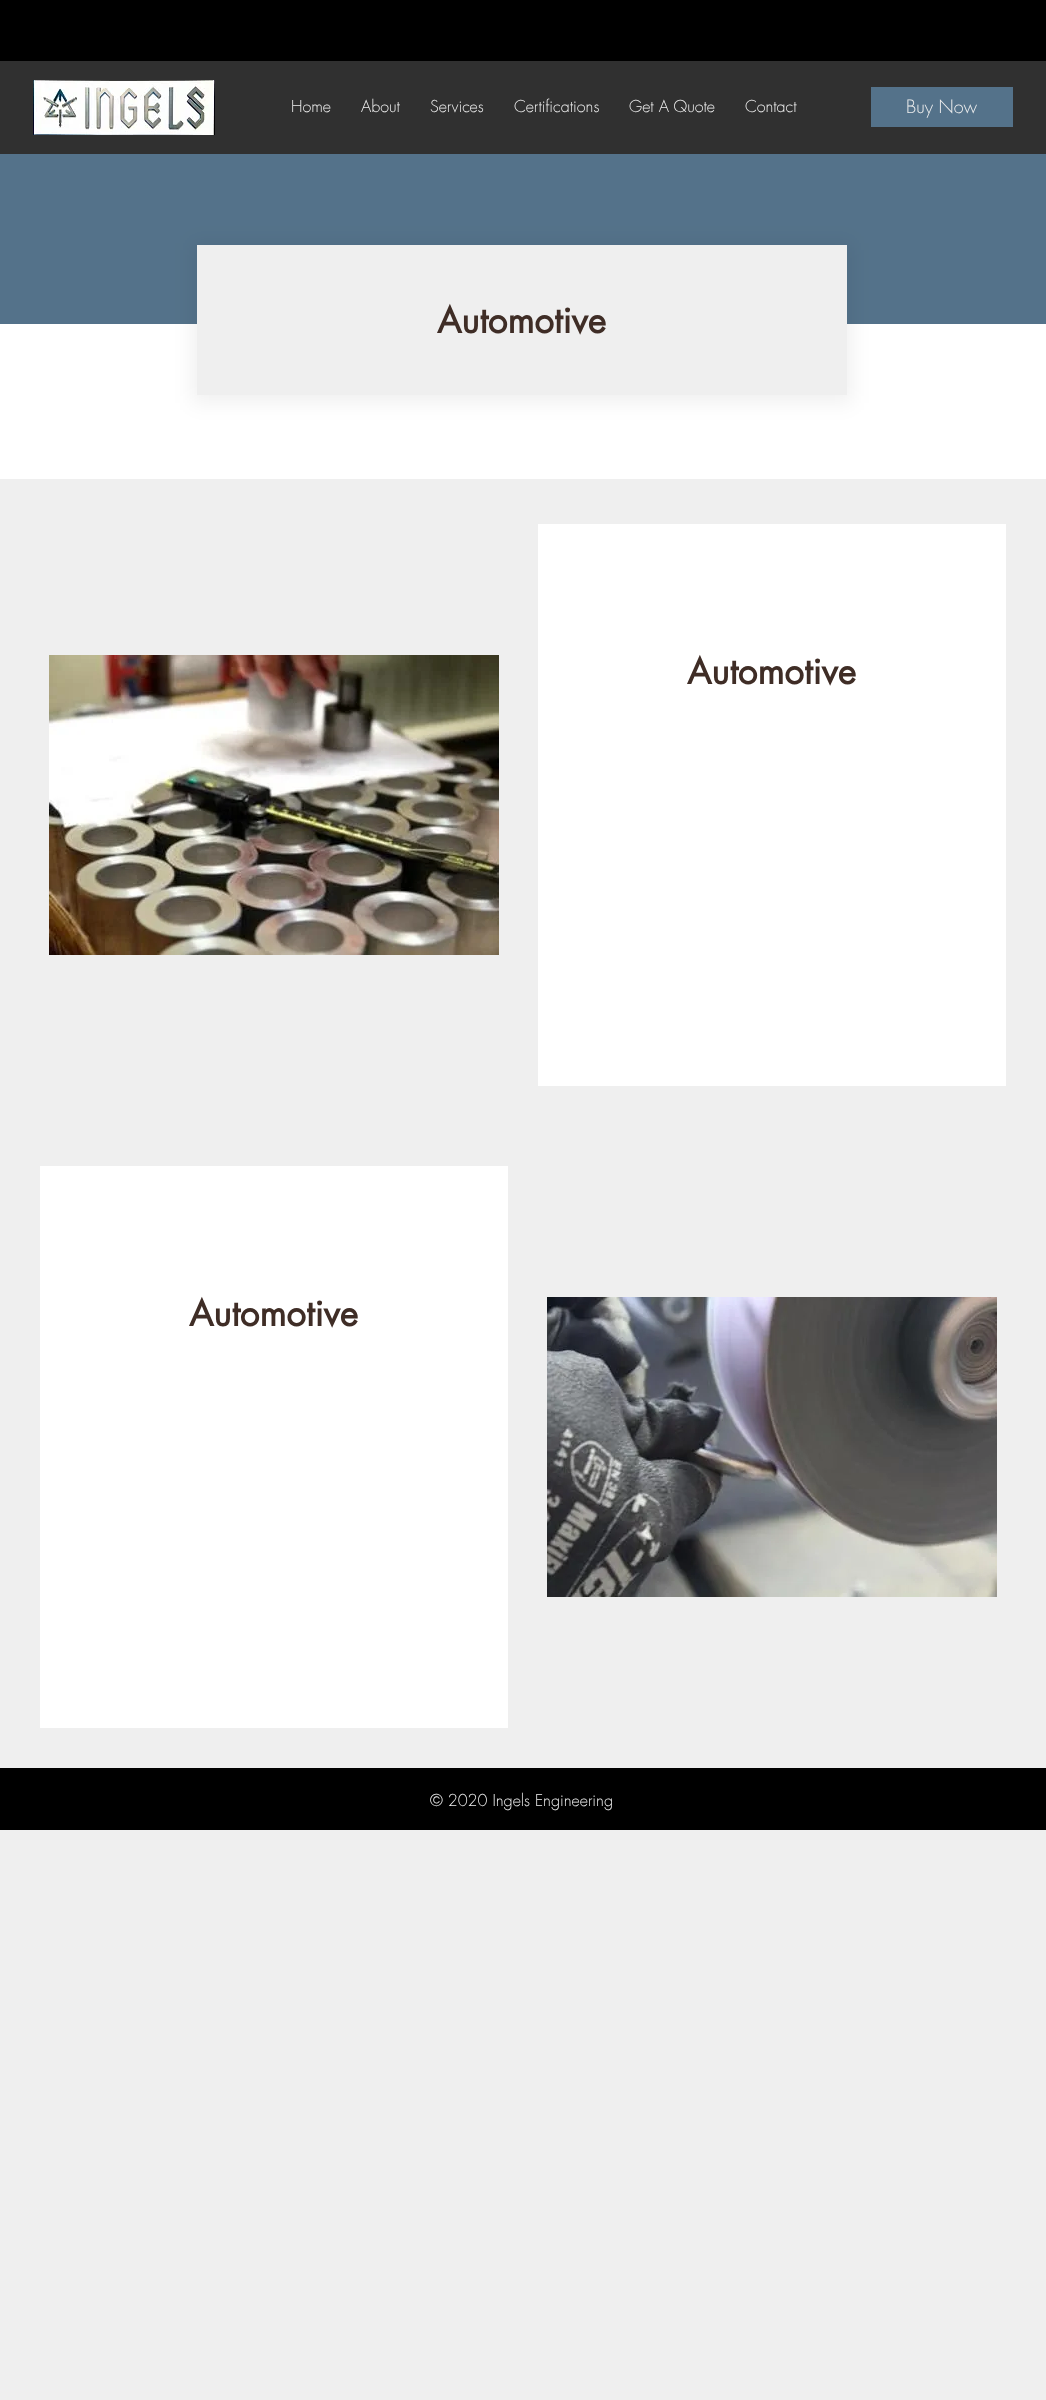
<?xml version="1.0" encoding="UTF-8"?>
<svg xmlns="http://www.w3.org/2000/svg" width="1046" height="2400">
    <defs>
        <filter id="blur1" x="-50%" y="-200%" width="200%" height="500%"><feGaussianBlur stdDeviation="10"/></filter>
    </defs>
    <rect width="100%" height="100%" fill="#EFEFEF"/>
    <rect x="0" y="0" width="1046" height="61" fill="#000000"/>
    <rect x="0" y="61" width="1046" height="93" fill="#303030"/>
    <rect x="0" y="154" width="1046" height="170" fill="#54728A"/>
    <image x="33" y="80" width="182" height="55" href="img_01.png"/>
    <text x="291" y="112" font-family="futura" font-size="16" font-weight="300" fill="#EFEFEF">Home</text>
    <text x="361" y="112" font-family="futura" font-size="16" font-weight="300" fill="#EFEFEF">About</text>
    <text x="430" y="112" font-family="futura" font-size="16" font-weight="300" fill="#EFEFEF">Services</text>
    <text x="514" y="112" font-family="futura" font-size="16" font-weight="300" fill="#EFEFEF">Certifications</text>
    <text x="629" y="112" font-family="futura" font-size="16" font-weight="300" fill="#EFEFEF">Get A Quote</text>
    <text x="745" y="112" font-family="futura" font-size="16" font-weight="300" fill="#EFEFEF">Contact</text>
    <rect x="871" y="87" width="142" height="40" fill="#54728A"/>
    <text x="906" y="113" font-family="futura" font-size="18" font-weight="300" fill="#EFEFEF">Buy Now</text>
    <rect x="0" y="324" width="1046" height="155" fill="#FFFFFF"/>
    <rect x="192" y="243" width="660" height="160" fill="#000000" fill-opacity="0.06" filter="url(#blur1)"/>
    <rect x="197" y="245" width="650" height="150" fill="#EFEFEF"/>
    <text x="437" y="333" font-family="futura" font-size="35" font-weight="700" fill="#3F2D26">Automotive</text>
    <image x="49" y="655" width="450" height="300" href="img_02.png"/>
    <rect x="538" y="524" width="468" height="562" fill="#FFFFFF"/>
    <text x="687" y="684" font-family="futura" font-size="35" font-weight="700" fill="#3F2D26">Automotive</text>
    <rect x="40" y="1166" width="468" height="562" fill="#FFFFFF"/>
    <text x="189" y="1326" font-family="futura" font-size="35" font-weight="700" fill="#3F2D26">Automotive</text>
    <image x="547" y="1297" width="450" height="300" href="img_03.png"/>
    <rect x="0" y="1768" width="1046" height="62" fill="#000000"/>
    <text x="430" y="1806" font-family="futura" font-size="16" font-weight="300" fill="#EFEFEF">© 2020 Ingels Engineering</text>
</svg>
